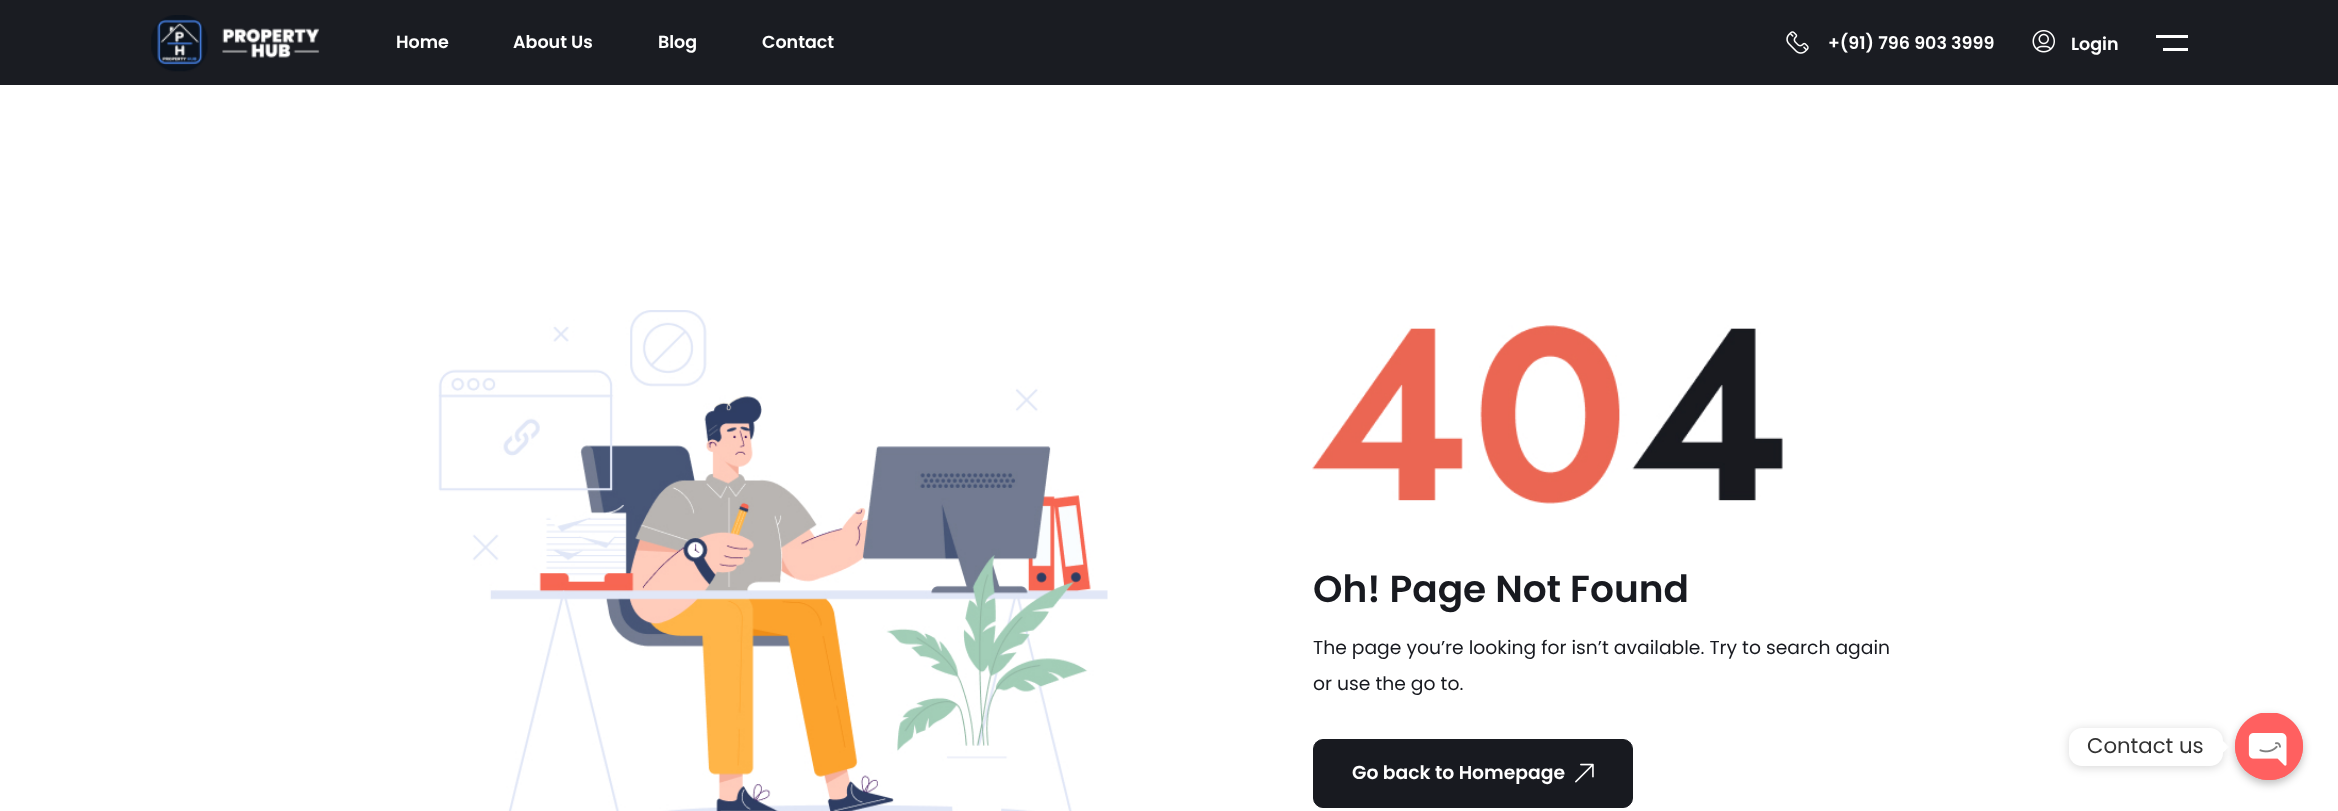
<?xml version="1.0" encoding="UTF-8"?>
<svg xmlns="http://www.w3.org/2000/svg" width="2338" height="811">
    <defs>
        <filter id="blur1" x="-50%" y="-200%" width="200%" height="500%"><feGaussianBlur stdDeviation="5"/></filter>
        <filter id="blur2" x="-50%" y="-200%" width="200%" height="500%"><feGaussianBlur stdDeviation="4"/></filter>
    </defs>
    <rect width="100%" height="100%" fill="#FFFFFF"/>
    <rect x="0" y="0" width="2338" height="85" fill="#1A1C22"/>
    <image x="151" y="15" width="169" height="57" href="img_01.png"/>
    <text x="396" y="48" font-family="Poppins" font-size="17.5" font-weight="600" fill="#FFFFFF">Home</text>
    <text x="513" y="48" font-family="Poppins" font-size="17.5" font-weight="600" fill="#FFFFFF">About Us</text>
    <text x="658" y="48" font-family="Poppins" font-size="17.5" font-weight="600" fill="#FFFFFF">Blog</text>
    <text x="762" y="48" font-family="Poppins" font-size="17.5" font-weight="600" fill="#FFFFFF">Contact</text>
    <image x="1786" y="31" width="23" height="23" href="img_02.png"/>
    <text x="1828" y="49" font-family="Poppins" font-size="17.5" font-weight="600" fill="#FFFFFF">+(91) 796 903 3999</text>
    <image x="2032" y="30" width="23" height="23" href="img_03.png"/>
    <text x="2071" y="50" font-family="Poppins" font-size="17.5" font-weight="600" fill="#FFFFFF">Login</text>
    <rect x="2156" y="35" width="32" height="3" fill="#FFFFFF"/>
    <rect x="2163" y="48" width="25" height="3" fill="#FFFFFF"/>
    <image x="438" y="310" width="670" height="501" href="img_04.png"/>
    <image x="1312" y="325" width="471" height="179" href="img_05.png"/>
    <text x="1313" y="602" font-family="Poppins" font-size="37.5" font-weight="600" fill="#181A20">Oh! Page Not Found</text>
    <text font-family="Poppins" font-size="18.75" fill="#181A20">
        <tspan x="1313" y="654">The page you’re looking for isn’t available. Try to search again</tspan>
        <tspan x="1313" y="690">or use the go to.</tspan>
    </text>
    <rect x="1313.5" y="739.5" width="319" height="68" rx="9.5" fill="#181A20" stroke="#181A20"/>
    <text x="1352" y="779" font-family="Poppins" font-size="18.75" font-weight="600" fill="#FFFFFF">Go back to Homepage</text>
    <image x="1575" y="763" width="19" height="20" href="img_06.png"/>
    <rect x="2069" y="729" width="154" height="39" rx="13" fill="#000000" fill-opacity="0.15" filter="url(#blur1)"/>
    <rect x="2069" y="728" width="154" height="38" rx="13" fill="#FFFFFF"/>
    <text x="2087" y="753" font-family="Poppins" font-size="21.25" fill="#333333">Contact us</text>
    <path d="M 2222.5 753 V 740.5 L 2229 747 Z" fill="#FFFFFF"/>
    <rect x="2235" y="716" width="68" height="68" rx="34" fill="#000000" fill-opacity="0.25" filter="url(#blur2)"/>
    <rect x="2235" y="713" width="68" height="67" rx="33.5" fill="#FF6060"/>
    <image x="2235" y="713" width="68" height="67" href="img_07.png"/>
</svg>
